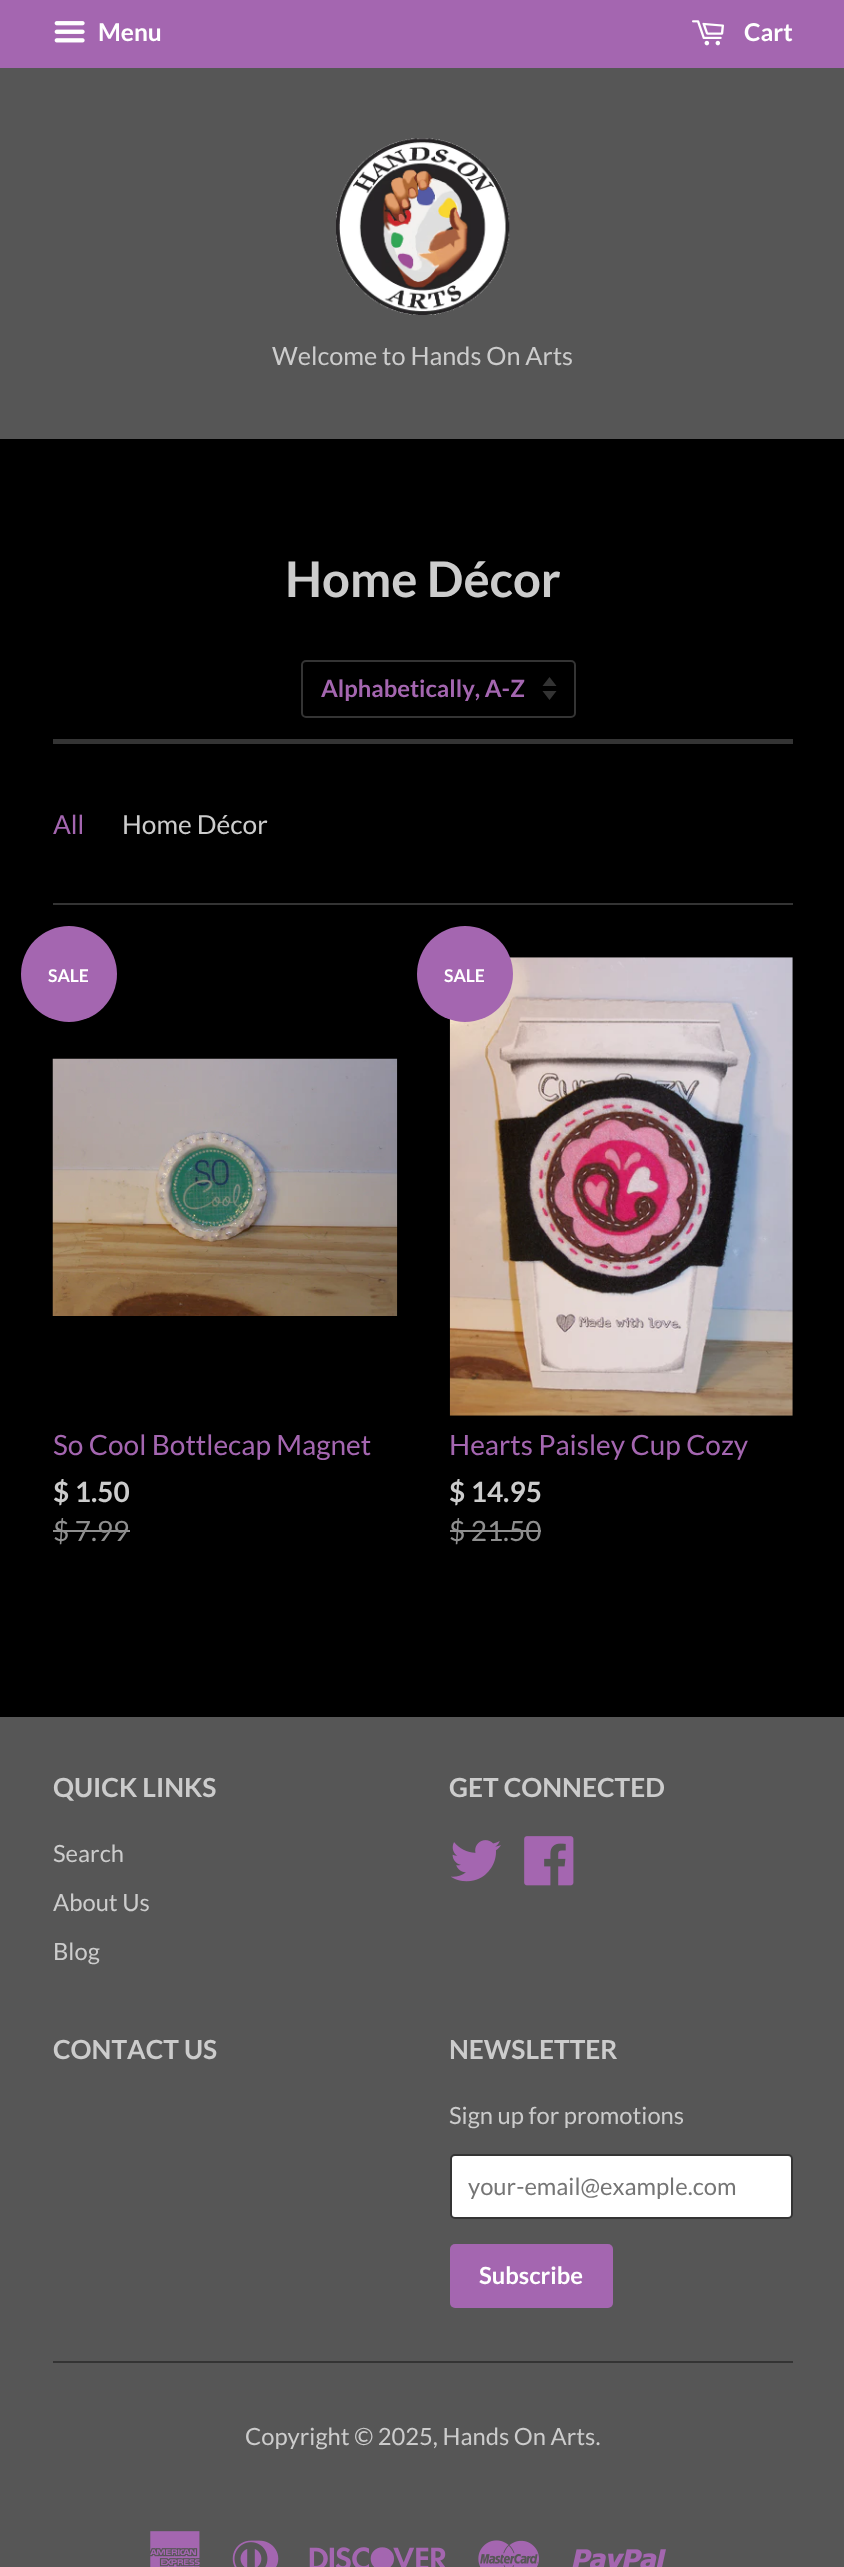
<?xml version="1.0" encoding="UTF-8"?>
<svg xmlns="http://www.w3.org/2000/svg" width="844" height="2567">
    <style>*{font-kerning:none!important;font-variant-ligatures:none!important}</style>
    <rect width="100%" height="100%" fill="#000000"/>
    <rect x="0" y="0" width="844" height="68" fill="#A466B0"/>
    <image x="54" y="21" width="31" height="22" href="img_01.png"/>
    <text x="98" y="41" font-family="Lato" font-size="24.5" font-weight="700" fill="#FFFFFF">Menu</text>
    <image x="692" y="20" width="32" height="26" href="img_02.png"/>
    <text x="744" y="41" font-family="Lato" font-size="24.5" font-weight="700" fill="#FFFFFF">Cart</text>
    <rect x="0" y="68" width="844" height="371" fill="#565656"/>
    <image x="336" y="138" width="174" height="177" href="img_03.png"/>
    <text x="272" y="365" font-family="Lato" font-size="25.25" fill="#CCCCCC">Welcome to Hands On Arts</text>
    <rect x="53" y="739" width="740" height="5" fill="#343434"/>
    <text x="285" y="597" font-family="Lato" font-size="49" font-weight="700" fill="#CCCCCC">Home Décor</text>
    <path d="M 542.5 691 L 549.5 700 L 556.5 691 Z M 549.5 677 L 542.5 686 H 556.5 Z" fill="#333333"/>
    <rect x="302" y="661" width="273" height="56" rx="4" fill="none" stroke="#343434" stroke-width="2"/>
    <text x="321" y="697" font-family="Lato" font-size="23.75" font-weight="700" fill="#A466B0">Alphabetically, A-Z</text>
    <text x="53" y="834" font-family="Lato" font-size="26.25" fill="#A466B0">All</text>
    <text x="122" y="834" font-family="Lato" font-size="26.25" fill="#CCCCCC">Home Décor</text>
    <rect x="53" y="903" width="740" height="2" fill="#343434"/>
    <circle cx="69" cy="974" r="48" fill="#A466B0"/>
    <text x="48" y="982" font-family="Lato" font-size="17.5" font-weight="700" fill="#FFFFFF">SALE</text>
    <image x="52" y="1058" width="346" height="258" href="img_04.png"/>
    <text x="53" y="1455" font-family="Lato" font-size="28" fill="#A466B0">So Cool Bottlecap Magnet</text>
    <text x="53" y="1502" font-family="Lato" font-size="28" font-weight="700" fill="#CCCCCC">$ 1.50</text>
    <text x="53" y="1541" font-family="Lato" font-size="28" fill="#8F8F8F">$ 7.99</text>
    <rect x="53" y="1530" width="77" height="2" fill="#8F8F8F"/>
    <image x="449" y="957" width="344" height="459" href="img_05.png"/>
    <circle cx="465" cy="974" r="48" fill="#A466B0"/>
    <text x="444" y="982" font-family="Lato" font-size="17.5" font-weight="700" fill="#FFFFFF">SALE</text>
    <text x="449" y="1455" font-family="Lato" font-size="28" fill="#A466B0">Hearts Paisley Cup Cozy</text>
    <text x="449" y="1502" font-family="Lato" font-size="28" font-weight="700" fill="#CCCCCC">$ 14.95</text>
    <text x="449" y="1541" font-family="Lato" font-size="28" fill="#8F8F8F">$ 21.50</text>
    <rect x="450" y="1530" width="91" height="2" fill="#8F8F8F"/>
    <rect x="0" y="1717" width="844" height="850" fill="#565656"/>
    <text x="53" y="1797" font-family="Lato" font-size="26.25" font-weight="700" fill="#CCCCCC">QUICK LINKS</text>
    <text x="53" y="1862" font-family="Lato" font-size="23.75" fill="#CCCCCC">Search</text>
    <text x="53" y="1911" font-family="Lato" font-size="23.75" fill="#CCCCCC">About Us</text>
    <text x="53" y="1960" font-family="Lato" font-size="23.75" fill="#CCCCCC">Blog</text>
    <text x="449" y="1797" font-family="Lato" font-size="26.25" font-weight="700" fill="#CCCCCC">GET CONNECTED</text>
    <image x="451" y="1840" width="50" height="42" href="img_06.png"/>
    <image x="524" y="1836" width="50" height="50" href="img_07.png"/>
    <text x="53" y="2059" font-family="Lato" font-size="26.25" font-weight="700" fill="#CCCCCC">CONTACT US</text>
    <text x="449" y="2059" font-family="Lato" font-size="26.25" font-weight="700" fill="#CCCCCC">NEWSLETTER</text>
    <text x="449" y="2124" font-family="Lato" font-size="23.75" fill="#CCCCCC">Sign up for promotions</text>
    <rect x="451" y="2155" width="341" height="63" rx="4" fill="#FFFFFF" stroke="#343434" stroke-width="2"/>
    <text x="468" y="2195" font-family="Lato" font-size="23.75" fill="#757575">your-email@example.com</text>
    <rect x="450" y="2244" width="163" height="64" rx="5" fill="#A466B0"/>
    <text x="479" y="2284" font-family="Lato" font-size="23.75" font-weight="700" fill="#FFFFFF">Subscribe</text>
    <rect x="53" y="2361" width="740" height="2" fill="#343434"/>
    <text x="245" y="2445" font-family="Lato" font-size="23.75" fill="#CCCCCC">Copyright © 2025, Hands On Arts.</text>
    <image x="150" y="2531" width="50" height="36" href="img_08.png"/>
    <image x="232" y="2540" width="47" height="27" href="img_09.png"/>
    <image x="309" y="2547" width="137" height="20" href="img_10.png"/>
    <image x="478" y="2540" width="61" height="27" href="img_11.png"/>
    <image x="572" y="2549" width="94" height="18" href="img_12.png"/>
</svg>
